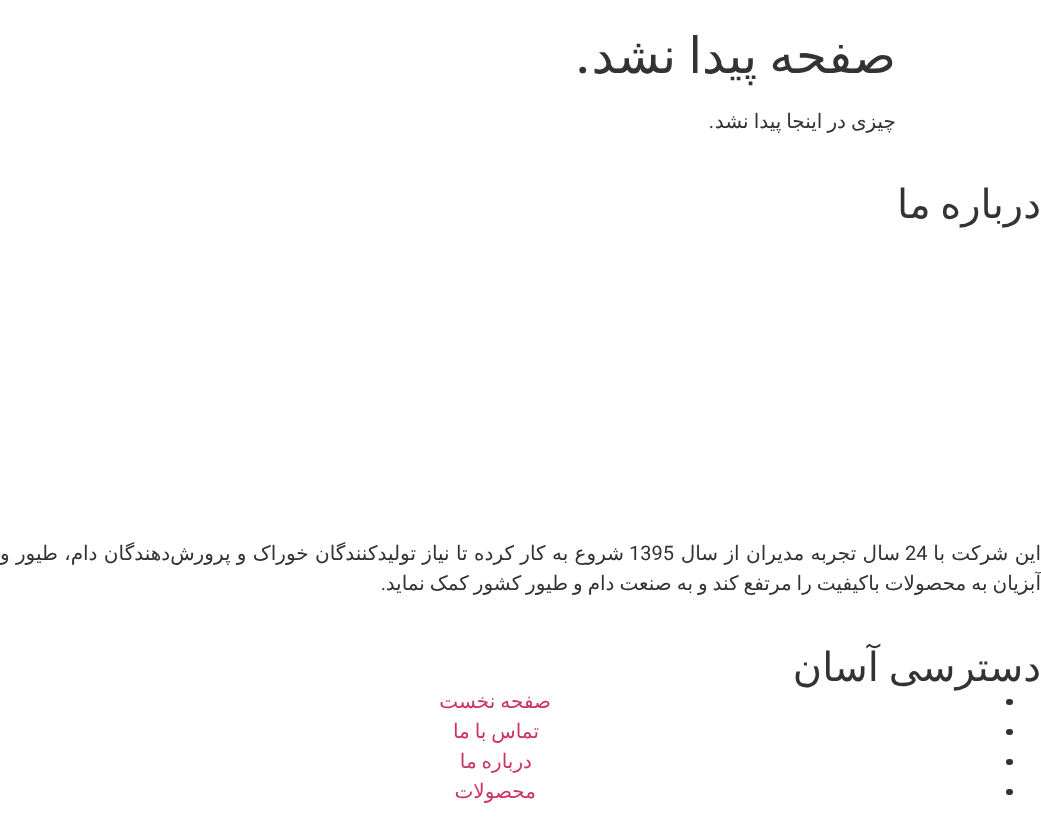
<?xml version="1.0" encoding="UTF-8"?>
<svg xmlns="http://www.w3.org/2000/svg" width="1041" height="818">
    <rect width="100%" height="100%" fill="#FFFFFF"/>
    <text x="896" y="73" word-spacing="-4" font-family="DejaVu Sans" font-size="50" direction="rtl" fill="#333333">صفحه پیدا نشد</text>
    <text x="590" y="73" font-family="Roboto" font-size="50" font-weight="500" direction="rtl" fill="#333333">.</text>
    <text x="896" y="128" word-spacing="-1.4" font-family="DejaVu Sans" font-size="20" direction="rtl" fill="#333333">چیزی در اینجا پیدا نشد</text>
    <text x="714" y="128" font-family="Roboto" font-size="20" direction="rtl" fill="#333333">.</text>
    <text x="1041" y="218" word-spacing="-3" font-family="DejaVu Sans" font-size="40" direction="rtl" fill="#333333">درباره ما</text>
    <text x="1041" y="560" font-family="DejaVu Sans" font-size="20" direction="rtl" fill="#333333">این شرکت با</text>
    <text x="905" y="560" font-family="Roboto" font-size="20" fill="#333333">24</text>
    <text x="900" y="560" font-family="DejaVu Sans" font-size="20" direction="rtl" fill="#333333">سال تجربه مدیران از سال</text>
    <text x="629" y="560" font-family="Roboto" font-size="20" fill="#333333">1395</text>
    <text x="624" y="560" font-family="DejaVu Sans" font-size="20" direction="rtl" fill="#333333">شروع به کار کرده تا نیاز تولیدکنندگان خوراک و پرورش‌دهندگان دام، طیور و</text>
    <text x="1041" y="590" word-spacing="-1.4" font-family="DejaVu Sans" font-size="20" direction="rtl" fill="#333333">آبزیان به محصولات باکیفیت را مرتفع کند و به صنعت دام و طیور کشور کمک نماید</text>
    <text x="386" y="590" font-family="Roboto" font-size="20" direction="rtl" fill="#333333">.</text>
    <text x="1041" y="681" word-spacing="-3" font-family="DejaVu Sans" font-size="40" direction="rtl" fill="#333333">دسترسی آسان</text>
    <rect x="1006" y="699" width="7" height="6" rx="3" fill="#333333"/>
    <text x="551" y="708" word-spacing="-1.4" font-family="DejaVu Sans" font-size="20" direction="rtl" fill="#CC3366">صفحه نخست</text>
    <rect x="1006" y="729" width="7" height="6" rx="3" fill="#333333"/>
    <text x="539" y="738" word-spacing="-1.4" font-family="DejaVu Sans" font-size="20" direction="rtl" fill="#CC3366">تماس با ما</text>
    <rect x="1006" y="759" width="7" height="6" rx="3" fill="#333333"/>
    <text x="532" y="768" word-spacing="-1.4" font-family="DejaVu Sans" font-size="20" direction="rtl" fill="#CC3366">درباره ما</text>
    <rect x="1006" y="789" width="7" height="6" rx="3" fill="#333333"/>
    <text x="536" y="798" font-family="DejaVu Sans" font-size="20" direction="rtl" fill="#CC3366">محصولات</text>
</svg>
